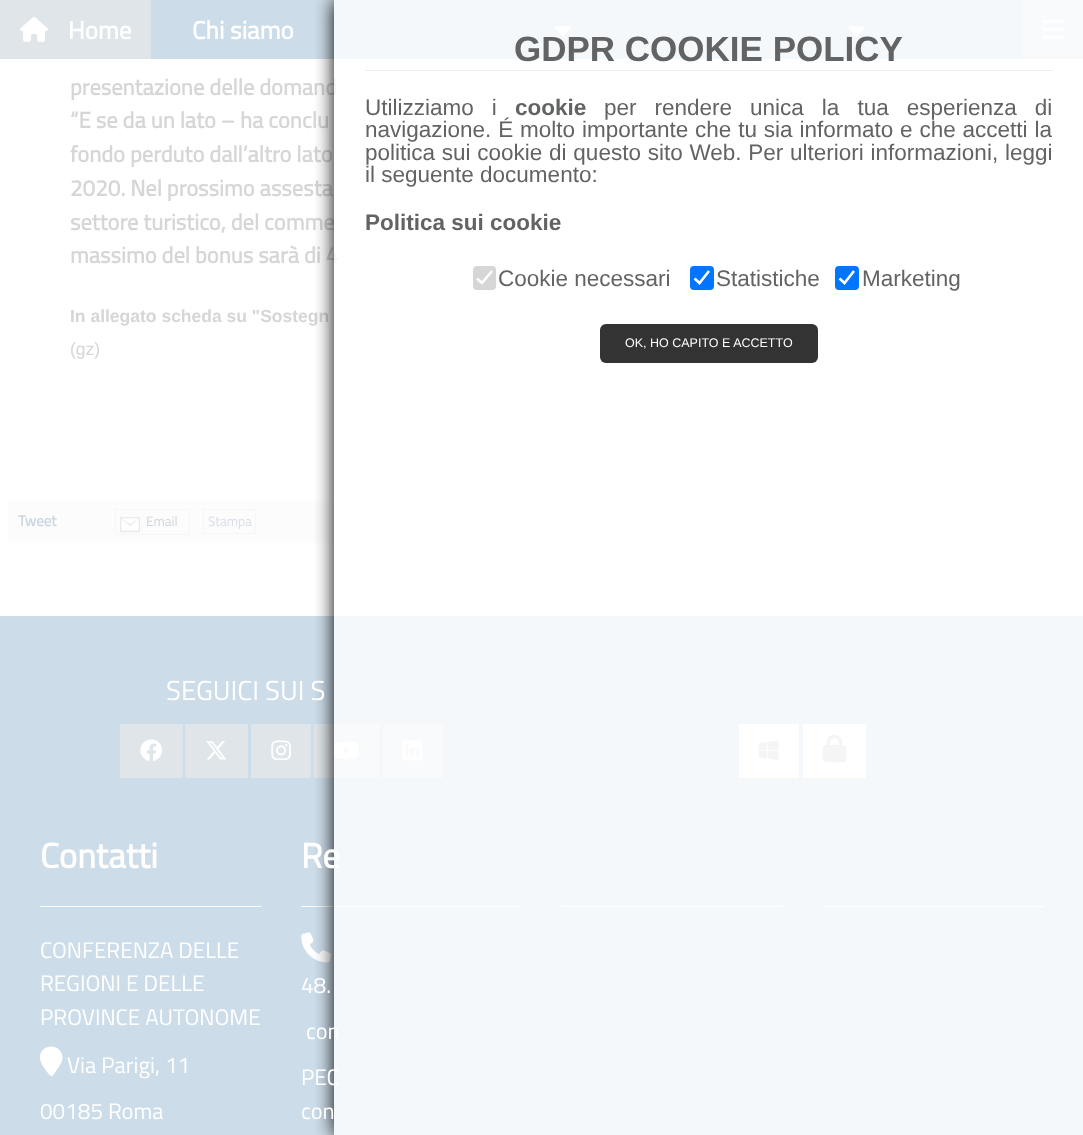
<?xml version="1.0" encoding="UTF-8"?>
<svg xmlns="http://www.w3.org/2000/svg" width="1083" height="1135">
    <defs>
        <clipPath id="clip1"><rect x="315" y="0" width="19" height="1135"/></clipPath>
        <filter id="blur1" x="-50%" y="-200%" width="200%" height="500%"><feGaussianBlur stdDeviation="9.5"/></filter>
    </defs>
    <rect width="100%" height="100%" fill="#FFFFFF"/>
    <rect x="151" y="0" width="872" height="59" fill="#CCDCE9"/>
    <rect x="0" y="0" width="151" height="59" fill="#DFE5E8"/>
    <image x="20" y="16" width="29" height="26" href="img_01.png"/>
    <text x="68" y="39" font-family="Titillium Web" font-size="25" font-weight="700" fill="#FFFFFF">Home</text>
    <text x="192" y="39" font-family="Titillium Web" font-size="25" font-weight="700" fill="#FFFFFF">Chi siamo</text>
    <image x="555" y="26" width="16" height="10" href="img_02.png"/>
    <image x="848" y="26" width="17" height="10" href="img_03.png"/>
    <rect x="1023" y="0" width="60" height="59" fill="#DFE5E8"/>
    <image x="1042" y="20" width="23" height="19" href="img_04.png"/>
    <text font-family="Titillium Web" font-size="22.5" font-weight="700" fill="#D6D6D6">
        <tspan x="70" y="95">presentazione delle domand</tspan>
        <tspan x="70" y="128">“E se da un lato – ha conclu</tspan>
        <tspan x="70" y="162">fondo perduto dall’altro lato</tspan>
        <tspan x="70" y="196">2020. Nel prossimo assesta</tspan>
        <tspan x="70" y="230">settore turistico, del comme</tspan>
        <tspan x="70" y="263">massimo del bonus sarà di 4</tspan>
    </text>
    <text x="70" y="322" font-family="Liberation Sans" font-size="17.5" font-weight="700" fill="#D6D6D6">In allegato scheda su "Sostegn</text>
    <text x="70" y="355" font-family="Liberation Sans" font-size="17.5" fill="#D6D6D6">(gz)</text>
    <rect x="8" y="501" width="1060" height="42" fill="#FCFCFC"/>
    <text x="18" y="526" font-family="Titillium Web" font-size="15" font-weight="700" fill="#CCD6E0">Tweet</text>
    <rect x="115.5" y="509.5" width="74" height="25" fill="none" stroke="#F4F6FA"/>
    <image x="120" y="516" width="20" height="17" href="img_05.png"/>
    <text x="146" y="526" font-family="Titillium Web" font-size="13.5" fill="#CCD6E0">Email</text>
    <rect x="203.5" y="509.5" width="52" height="24" fill="none" stroke="#F4F6FA"/>
    <text x="208" y="526" font-family="Titillium Web" font-size="13.5" fill="#D8DEEA">Stampa</text>
    <rect x="0" y="616" width="1083" height="519" fill="#CCDCE9"/>
    <rect x="251" y="724" width="60" height="54" fill="#DFE5E8"/>
    <rect x="314" y="724" width="66" height="54" fill="#DFE5E8"/>
    <image x="334" y="741" width="25" height="18" href="img_09.png"/>
    <rect x="383" y="724" width="60" height="54" fill="#DFE5E8"/>
    <image x="402" y="740" width="21" height="21" href="img_10.png"/>
    <rect x="739" y="724" width="60" height="54" fill="#FCFCFC"/>
    <image x="758" y="740" width="21" height="21" href="img_11.png"/>
    <rect x="803" y="724" width="63" height="54" fill="#FCFCFC"/>
    <image x="822" y="734" width="25" height="29" href="img_12.png"/>
    <rect x="301" y="906" width="220" height="1" fill="#FCFCFC"/>
    <image x="301" y="932" width="31" height="31" href="img_13.png"/>
    <rect x="561" y="906" width="222" height="1" fill="#FCFCFC"/>
    <rect x="823" y="906" width="221" height="1" fill="#FCFCFC"/>
    <g clip-path="url(#clip1)">
        <rect x="334" y="0" width="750" height="1135" fill="#000000" filter="url(#blur1)"/>
    </g>
    <text x="301" y="868" font-family="Titillium Web" font-size="35" font-weight="700" fill="#FFFFFF">Re</text>
    <text x="306" y="1039" font-family="Titillium Web" font-size="22.5" fill="#FFFFFF">con</text>
    <text x="301" y="1085" font-family="Titillium Web" font-size="22.5" fill="#FFFFFF">PEC</text>
    <rect x="334" y="0" width="749" height="1135" fill="#FFFFFF" fill-opacity="0.8"/>
    <text x="514" y="61" font-family="Liberation Sans" font-size="35" font-weight="700" fill="#626364">GDPR COOKIE POLICY</text>
    <rect x="365" y="70" width="688" height="1" fill="#EEEEEE"/>
    <text x="365" y="115" word-spacing="11.75" font-family="Liberation Sans" font-size="22.5" fill="#626364">Utilizziamo i</text>
    <text x="515" y="115" font-family="Liberation Sans" font-size="22.5" font-weight="700" fill="#626364">cookie</text>
    <text x="604" y="115" word-spacing="11.75" font-family="Liberation Sans" font-size="22.5" fill="#626364">per rendere unica la tua esperienza di</text>
    <text font-family="Liberation Sans" font-size="22.5" fill="#626364">
        <tspan x="365" y="137" word-spacing="0.6">navigazione. É molto importante che tu sia informato e che accetti la</tspan>
        <tspan x="365" y="160" word-spacing="0.5">politica sui cookie di questo sito Web. Per ulteriori informazioni, leggi</tspan>
        <tspan x="365" y="182">il seguente documento:</tspan>
    </text>
    <text x="365" y="230" font-family="Liberation Sans" font-size="22.5" font-weight="700" fill="#626364">Politica sui cookie</text>
    <rect x="473" y="266" width="23" height="24" rx="4" fill="#D6D6D6"/>
    <path d="M 477 278.5 L 482 283 L 492 271" fill="none" stroke="#FFFFFF" stroke-width="2.6"/>
    <text x="498" y="286" font-family="Liberation Sans" font-size="22.5" fill="#626364">Cookie necessari</text>
    <rect x="690" y="266" width="24" height="24" rx="4" fill="#0075FF"/>
    <path d="M 694.5 278.5 L 699.5 283 L 709 271" fill="none" stroke="#FFFFFF" stroke-width="2.6"/>
    <text x="716" y="286" font-family="Liberation Sans" font-size="22.5" fill="#626364">Statistiche</text>
    <rect x="835" y="266" width="24" height="24" rx="4" fill="#0075FF"/>
    <path d="M 839.5 278.5 L 844.5 283 L 854 271" fill="none" stroke="#FFFFFF" stroke-width="2.6"/>
    <text x="862" y="286" font-family="Liberation Sans" font-size="22.5" fill="#626364">Marketing</text>
    <rect x="600" y="324" width="218" height="39" rx="6" fill="#333333"/>
    <text x="625" y="347" font-family="Liberation Sans" font-size="12.5" fill="#FFFFFF">OK, HO CAPITO E ACCETTO</text>
    <text x="166" y="700" font-family="Titillium Web" font-size="27.5" fill="#FFFFFF">SEGUICI SUI S</text>
    <rect x="120" y="724" width="63" height="54" fill="#DFE5E8"/>
    <image x="140" y="739" width="23" height="22" href="img_06.png"/>
    <rect x="185" y="724" width="63" height="54" fill="#DFE5E8"/>
    <image x="206" y="741" width="21" height="19" href="img_07.png"/>
    <image x="271" y="740" width="20" height="21" href="img_08.png"/>
    <text x="40" y="868" font-family="Titillium Web" font-size="35" font-weight="700" fill="#FFFFFF">Contatti</text>
    <rect x="40" y="906" width="221" height="1" fill="#FCFCFC"/>
    <text font-family="Titillium Web" font-size="22.5" fill="#FFFFFF">
        <tspan x="40" y="958">CONFERENZA DELLE</tspan>
        <tspan x="40" y="991">REGIONI E DELLE</tspan>
        <tspan x="40" y="1025">PROVINCE AUTONOME</tspan>
    </text>
    <path d="M 62.5 1057.5 C 62.5 1062 59.5 1066 57 1069.5 C 51.5 1078 52 1078.5 46 1070.5 C 43.5 1067 40 1062 40 1057.5 C 40 1043 62 1042.5 62.5 1057.5 Z" fill="#FFFFFF"/>
    <text x="67" y="1073" font-family="Titillium Web" font-size="22.5" fill="#FFFFFF">Via Parigi, 11</text>
    <text x="40" y="1119" font-family="Titillium Web" font-size="22.5" fill="#FFFFFF">00185 Roma</text>
    <text x="301" y="993" font-family="Titillium Web" font-size="22.5" fill="#FFFFFF">48.</text>
    <text x="301" y="1119" font-family="Titillium Web" font-size="22.5" fill="#FFFFFF">con</text>
</svg>
